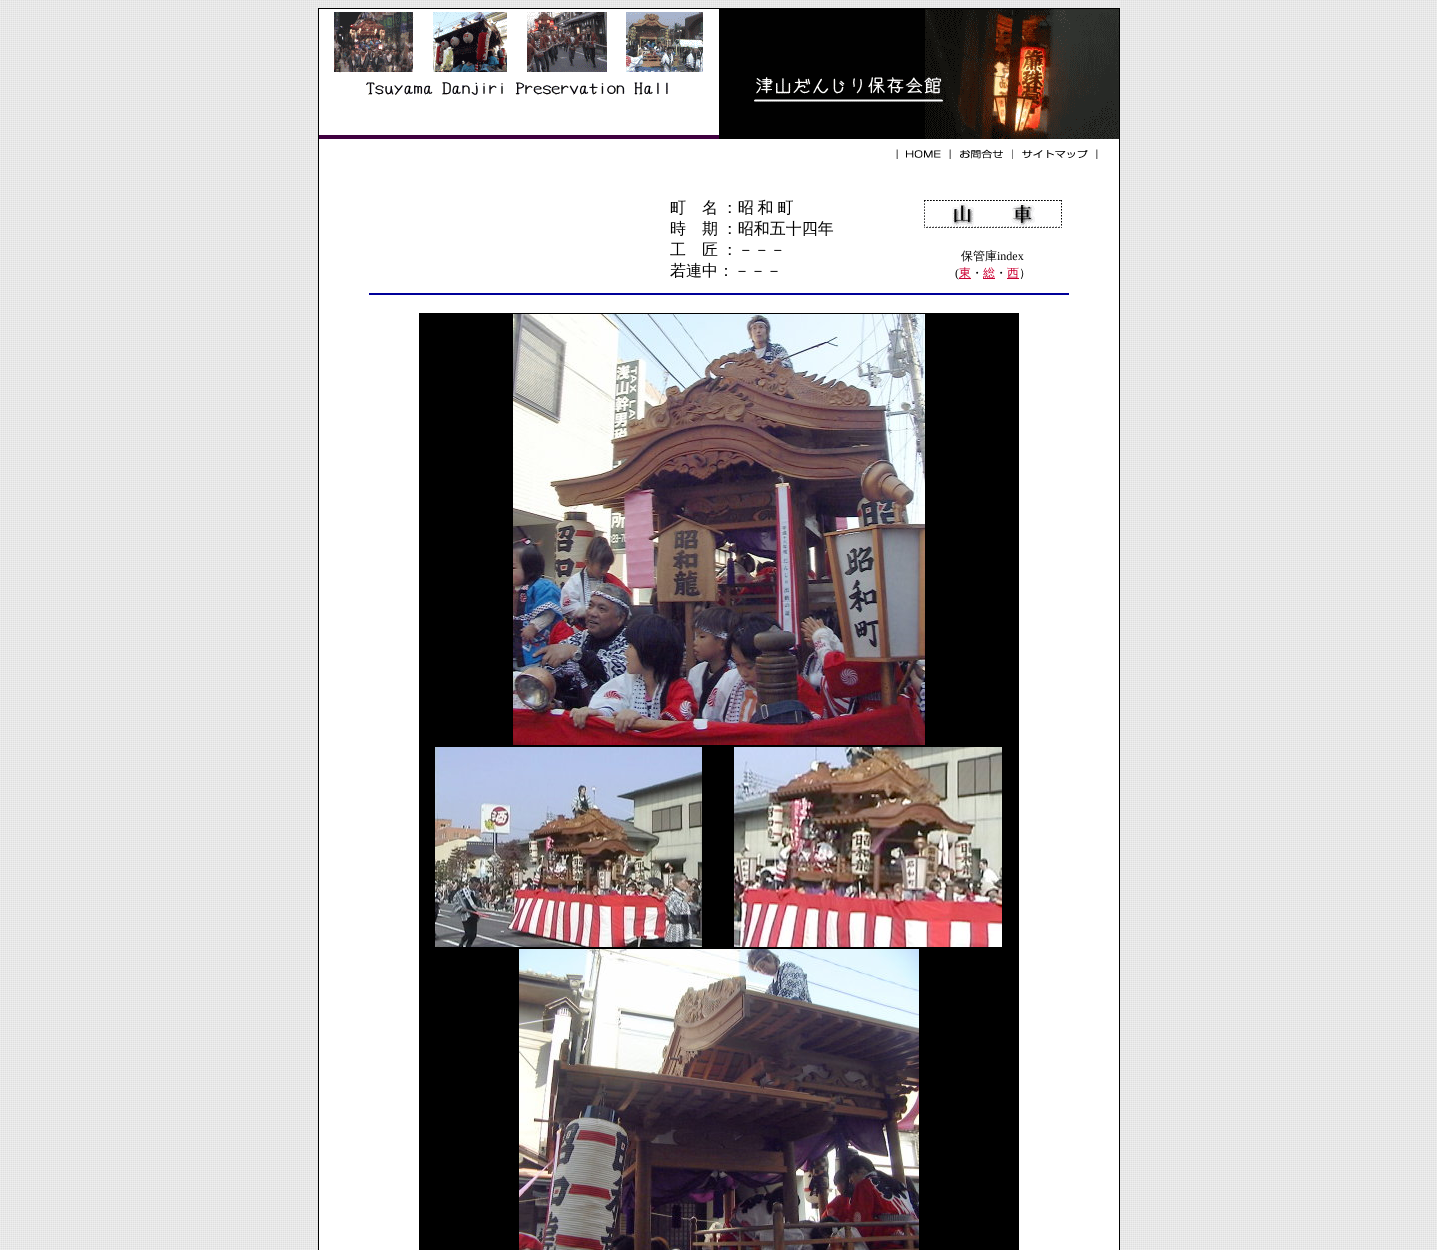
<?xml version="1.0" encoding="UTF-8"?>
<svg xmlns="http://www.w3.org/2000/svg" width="1437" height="1250">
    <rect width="100%" height="100%" fill="#FFFFFF"/>
    <image x="0" y="0" width="1437" height="1250" href="img_01.png"/>
    <rect x="318" y="8" width="802" height="1242" fill="#000000"/>
    <rect x="319" y="9" width="800" height="1241" fill="#FFFFFF"/>
    <image x="319" y="12" width="400" height="127" href="img_02.png"/>
    <image x="719" y="9" width="400" height="130" href="img_03.png"/>
    <image x="896" y="149" width="202" height="10" href="img_04.png"/>
    <text font-family="WenQuanYi Zen Hei" font-size="16" font-weight="500" fill="#000000">
        <tspan x="670" y="213" word-spacing="-1">町　名 ：昭 和 町</tspan>
        <tspan x="670" y="234" word-spacing="-1">時　期 ：昭和五十四年</tspan>
        <tspan x="670" y="255" word-spacing="-1">工　匠 ：－－－</tspan>
        <tspan x="670" y="276">若連中：－－－</tspan>
    </text>
    <image x="924" y="200" width="138" height="28" href="img_05.png"/>
    <text x="961" y="260" font-family="WenQuanYi Zen Hei" font-size="12" font-weight="500" fill="#000000">保管庫</text>
    <text x="997" y="260" font-family="Liberation Serif" font-size="12" fill="#000000">index</text>
    <text x="955" y="277" font-family="Liberation Serif" font-size="12" fill="#000000">(</text>
    <rect x="959" y="278" width="12" height="1" fill="#CC0033"/>
    <text x="959" y="277" font-family="WenQuanYi Zen Hei" font-size="12" font-weight="500" fill="#CC0033">東</text>
    <text x="971" y="277" font-family="WenQuanYi Zen Hei" font-size="12" font-weight="500" fill="#000000">・</text>
    <rect x="983" y="278" width="12" height="1" fill="#CC0033"/>
    <text x="983" y="277" font-family="WenQuanYi Zen Hei" font-size="12" font-weight="500" fill="#CC0033">総</text>
    <text x="995" y="277" font-family="WenQuanYi Zen Hei" font-size="12" font-weight="500" fill="#000000">・</text>
    <rect x="1007" y="278" width="12" height="1" fill="#CC0033"/>
    <text x="1007" y="277" font-family="WenQuanYi Zen Hei" font-size="12" font-weight="500" fill="#CC0033">西</text>
    <text x="1019" y="277" font-family="WenQuanYi Zen Hei" font-size="12" font-weight="500" fill="#000000">）</text>
    <rect x="369" y="293" width="700" height="2" fill="#000099"/>
    <rect x="419" y="313" width="600" height="433" fill="#000000"/>
    <image x="513" y="314" width="412" height="431" href="img_06.png"/>
    <rect x="419" y="746" width="600" height="504" fill="#000000"/>
    <image x="435" y="747" width="267" height="200" href="img_07.png"/>
    <image x="734" y="747" width="268" height="200" href="img_08.png"/>
    <image x="519" y="949" width="400" height="301" href="img_09.png"/>
</svg>
